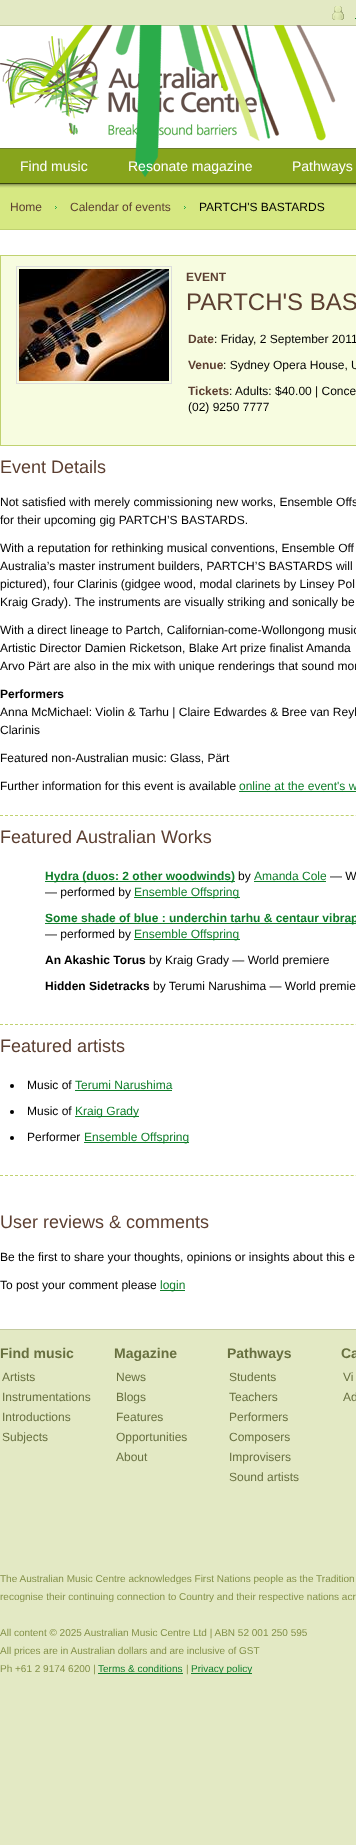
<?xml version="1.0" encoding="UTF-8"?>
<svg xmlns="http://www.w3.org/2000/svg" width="356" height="1845">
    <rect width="100%" height="100%" fill="#E3E9C4"/>
    <rect x="0" y="25" width="356" height="1" fill="#C4CBA1"/>
    <rect x="0" y="26" width="356" height="122" fill="#FFFFFF"/>
    <image x="0" y="36" width="257" height="102" href="img_03.png"/>
    <rect x="0" y="149" width="356" height="34" fill="#87A41C"/>
    <rect x="0" y="148" width="356" height="1" fill="#6C7C2F"/>
    <image x="40" y="25" width="296" height="152" href="img_01.png"/>
    <image x="332" y="6" width="12" height="14" href="img_02.png"/>
    <rect x="355" y="18" width="1" height="1" fill="#107E2B"/>
    <rect x="0" y="183" width="356" height="1" fill="#3A470E"/>
    <text x="20" y="171" font-family="Liberation Sans" font-size="14" fill="#FFFFFF">Find music</text>
    <text x="128" y="171" font-family="Liberation Sans" font-size="14" fill="#FFFFFF">Resonate magazine</text>
    <text x="292" y="171" font-family="Liberation Sans" font-size="14" fill="#FFFFFF">Pathways</text>
    <rect x="0" y="188" width="356" height="41" fill="#D6E882"/>
    <image x="0" y="184" width="356" height="4" href="img_04.png"/>
    <rect x="0" y="229" width="356" height="1" fill="#C0D270"/>
    <text x="10" y="211" font-family="Liberation Sans" font-size="12" fill="#5C3F31">Home</text>
    <image x="55" y="206" width="2" height="3" href="img_05.png"/>
    <text x="70" y="211" font-family="Liberation Sans" font-size="12" fill="#5C3F31">Calendar of events</text>
    <image x="184" y="206" width="2" height="3" href="img_05.png"/>
    <text x="199" y="211" font-family="Liberation Sans" font-size="12" fill="#000000">PARTCH'S BASTARDS</text>
    <rect x="0" y="230" width="356" height="1099" fill="#FFFFFF"/>
    <rect x="0.5" y="255.5" width="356" height="190" fill="#F7FCE0" stroke="#C0D270"/>
    <rect x="16.5" y="266.5" width="155" height="117" fill="none" stroke="#DDDDDD"/>
    <image x="19" y="269" width="150" height="112" href="img_06.png"/>
    <text x="186" y="281" font-family="Liberation Sans" font-size="12" font-weight="700" fill="#5C3F31">EVENT</text>
    <text x="186" y="310" font-family="Liberation Sans" font-size="24" fill="#5C3F31">PARTCH'S BAS</text>
    <text x="188" y="343" font-family="Liberation Sans" font-size="12" font-weight="700" fill="#5C3F31">Date</text>
    <text x="214" y="343" font-family="Liberation Sans" font-size="12" fill="#000000">: Friday, 2 September 2011</text>
    <text x="188" y="369" font-family="Liberation Sans" font-size="12" font-weight="700" fill="#5C3F31">Venue</text>
    <text x="223" y="369" font-family="Liberation Sans" font-size="12" fill="#000000">: Sydney Opera House, U</text>
    <text x="188" y="395" font-family="Liberation Sans" font-size="12" font-weight="700" fill="#5C3F31">Tickets</text>
    <text x="229" y="395" font-family="Liberation Sans" font-size="12" fill="#000000">:</text>
    <text x="235" y="395" font-family="Liberation Sans" font-size="12" fill="#000000">Adults: $40.00 | Conce</text>
    <text x="188" y="411" font-family="Liberation Sans" font-size="12" fill="#000000">(02) 9250 7777</text>
    <path d="M 0 815.5 H 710" fill="none" stroke="#C0D270" stroke-dasharray="3 2.01"/>
    <text x="0" y="473" font-family="Liberation Sans" font-size="18" fill="#5C3F31">Event Details</text>
    <text font-family="Liberation Sans" font-size="12" fill="#000000">
        <tspan x="0" y="506">Not satisfied with merely commissioning new works, Ensemble Offs</tspan>
        <tspan x="0" y="524">for their upcoming gig PARTCH’S BASTARDS.</tspan>
    </text>
    <text font-family="Liberation Sans" font-size="12" fill="#000000">
        <tspan x="0" y="552">With a reputation for rethinking musical conventions, Ensemble Off</tspan>
        <tspan x="0" y="570">Australia’s master instrument builders, PARTCH’S BASTARDS will</tspan>
        <tspan x="0" y="588">pictured), four Clarinis (gidgee wood, modal clarinets by Linsey Pol</tspan>
        <tspan x="0" y="606">Kraig Grady). The instruments are visually striking and sonically be</tspan>
    </text>
    <text font-family="Liberation Sans" font-size="12" fill="#000000">
        <tspan x="0" y="634">With a direct lineage to Partch, Californian-come-Wollongong music</tspan>
        <tspan x="0" y="652">Artistic Director Damien Ricketson, Blake Art prize finalist Amanda</tspan>
        <tspan x="0" y="670">Arvo Pärt are also in the mix with unique renderings that sound mor</tspan>
    </text>
    <text x="0" y="698" font-family="Liberation Sans" font-size="12" font-weight="700" fill="#000000">Performers</text>
    <text font-family="Liberation Sans" font-size="12" fill="#000000">
        <tspan x="0" y="716">Anna McMichael: Violin &amp; Tarhu | Claire Edwardes &amp; Bree van Reyk</tspan>
        <tspan x="0" y="734">Clarinis</tspan>
    </text>
    <text x="0" y="762" font-family="Liberation Sans" font-size="12" fill="#000000">Featured non-Australian music: Glass, Pärt</text>
    <text x="0" y="790" font-family="Liberation Sans" font-size="12" fill="#000000">Further information for this event is available</text>
    <text x="239" y="790" font-family="Liberation Sans" font-size="12" fill="#107E2B">online at the event's w</text>
    <rect x="239" y="791" width="117" height="1" fill="#107E2B"/>
    <path d="M 0 1024.5 H 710" fill="none" stroke="#C0D270" stroke-dasharray="3 2.01"/>
    <text x="0" y="843" font-family="Liberation Sans" font-size="18" fill="#5C3F31">Featured Australian Works</text>
    <rect x="45" y="881" width="190" height="1" fill="#107E2B"/>
    <text x="45" y="880" font-family="Liberation Sans" font-size="12" font-weight="700" fill="#107E2B">Hydra (duos: 2 other woodwinds)</text>
    <text x="238" y="880" font-family="Liberation Sans" font-size="12" fill="#000000">by</text>
    <text x="254" y="880" font-family="Liberation Sans" font-size="12" fill="#107E2B">Amanda Cole</text>
    <rect x="254" y="881" width="72" height="1" fill="#107E2B"/>
    <text x="330" y="880" font-family="Liberation Sans" font-size="12" fill="#000000">— W</text>
    <text x="45" y="896" font-family="Liberation Sans" font-size="12" fill="#000000">— performed by</text>
    <rect x="134" y="897" width="106" height="1" fill="#107E2B"/>
    <text x="134" y="896" font-family="Liberation Sans" font-size="12" fill="#107E2B">Ensemble Offspring</text>
    <rect x="45" y="923" width="311" height="1" fill="#107E2B"/>
    <text x="45" y="922" font-family="Liberation Sans" font-size="12" font-weight="700" fill="#107E2B">Some shade of blue : underchin tarhu &amp; centaur vibrap</text>
    <text x="45" y="938" font-family="Liberation Sans" font-size="12" fill="#000000">— performed by</text>
    <rect x="134" y="939" width="106" height="1" fill="#107E2B"/>
    <text x="134" y="938" font-family="Liberation Sans" font-size="12" fill="#107E2B">Ensemble Offspring</text>
    <text x="45" y="964" font-family="Liberation Sans" font-size="12" font-weight="700" fill="#000000">An Akashic Torus</text>
    <text x="149" y="964" font-family="Liberation Sans" font-size="12" fill="#000000">by Kraig Grady — World premiere</text>
    <text x="45" y="990" font-family="Liberation Sans" font-size="12" font-weight="700" fill="#000000">Hidden Sidetracks</text>
    <text x="153" y="990" font-family="Liberation Sans" font-size="12" fill="#000000">by Terumi Narushima — World premie</text>
    <path d="M 0 1175.5 H 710" fill="none" stroke="#C0D270" stroke-dasharray="3 2.01"/>
    <text x="0" y="1052" font-family="Liberation Sans" font-size="18" fill="#5C3F31">Featured artists</text>
    <circle cx="12" cy="1086" r="2" fill="#000000"/>
    <text x="27" y="1089" font-family="Liberation Sans" font-size="12" fill="#000000">Music of</text>
    <text x="75" y="1089" font-family="Liberation Sans" font-size="12" fill="#107E2B">Terumi Narushima</text>
    <rect x="75" y="1090" width="97" height="1" fill="#107E2B"/>
    <circle cx="12" cy="1112" r="2" fill="#000000"/>
    <text x="27" y="1115" font-family="Liberation Sans" font-size="12" fill="#000000">Music of</text>
    <rect x="75" y="1116" width="64" height="1" fill="#107E2B"/>
    <text x="75" y="1115" font-family="Liberation Sans" font-size="12" fill="#107E2B">Kraig Grady</text>
    <circle cx="12" cy="1138" r="2" fill="#000000"/>
    <text x="27" y="1141" font-family="Liberation Sans" font-size="12" fill="#000000">Performer</text>
    <rect x="84" y="1142" width="105" height="1" fill="#107E2B"/>
    <text x="84" y="1141" font-family="Liberation Sans" font-size="12" fill="#107E2B">Ensemble Offspring</text>
    <text x="0" y="1228" font-family="Liberation Sans" font-size="18" fill="#5C3F31">User reviews &amp; comments</text>
    <text x="0" y="1261" font-family="Liberation Sans" font-size="12" fill="#000000">Be the first to share your thoughts, opinions or insights about this e</text>
    <text x="0" y="1289" font-family="Liberation Sans" font-size="12" fill="#000000">To post your comment please</text>
    <rect x="160" y="1290" width="25" height="1" fill="#107E2B"/>
    <text x="160" y="1289" font-family="Liberation Sans" font-size="12" fill="#107E2B">login</text>
    <rect x="0" y="1329" width="356" height="1" fill="#C4CBA1"/>
    <text x="0" y="1358" font-family="Liberation Sans" font-size="14" font-weight="700" fill="#687040">Find music</text>
    <text font-family="Liberation Sans" font-size="12" fill="#687040">
        <tspan x="2" y="1381">Artists</tspan>
        <tspan x="2" y="1401">Instrumentations</tspan>
        <tspan x="2" y="1421">Introductions</tspan>
        <tspan x="2" y="1441">Subjects</tspan>
    </text>
    <text x="114" y="1358" font-family="Liberation Sans" font-size="14" font-weight="700" fill="#687040">Magazine</text>
    <text font-family="Liberation Sans" font-size="12" fill="#687040">
        <tspan x="116" y="1381">News</tspan>
        <tspan x="116" y="1401">Blogs</tspan>
        <tspan x="116" y="1421">Features</tspan>
        <tspan x="116" y="1441">Opportunities</tspan>
        <tspan x="116" y="1461">About</tspan>
    </text>
    <text x="227" y="1358" font-family="Liberation Sans" font-size="14" font-weight="700" fill="#687040">Pathways</text>
    <text font-family="Liberation Sans" font-size="12" fill="#687040">
        <tspan x="229" y="1381">Students</tspan>
        <tspan x="229" y="1401">Teachers</tspan>
        <tspan x="229" y="1421">Performers</tspan>
        <tspan x="229" y="1441">Composers</tspan>
        <tspan x="229" y="1461">Improvisers</tspan>
        <tspan x="229" y="1481">Sound artists</tspan>
    </text>
    <text x="341" y="1358" font-family="Liberation Sans" font-size="14" font-weight="700" fill="#687040">Ca</text>
    <text font-family="Liberation Sans" font-size="12" fill="#687040">
        <tspan x="343" y="1381">Vi</tspan>
        <tspan x="343" y="1401">Ad</tspan>
    </text>
    <text font-family="Liberation Sans" font-size="10" fill="#849149">
        <tspan x="0" y="1582">The Australian Music Centre acknowledges First Nations people as the Tradition</tspan>
        <tspan x="0" y="1600">recognise their continuing connection to Country and their respective nations acr</tspan>
    </text>
    <text font-family="Liberation Sans" font-size="10" fill="#849149">
        <tspan x="0" y="1636">All content © 2025 Australian Music Centre Ltd | ABN 52 001 250 595</tspan>
        <tspan x="0" y="1654">All prices are in Australian dollars and are inclusive of GST</tspan>
        <tspan x="0" y="1672">Ph +61 2 9174 6200 |</tspan>
    </text>
    <text x="98" y="1672" font-family="Liberation Sans" font-size="10" fill="#107E2B">Terms &amp; conditions</text>
    <rect x="98" y="1673" width="85" height="1" fill="#107E2B"/>
    <text x="186" y="1672" font-family="Liberation Sans" font-size="10" fill="#849149">|</text>
    <rect x="191" y="1673" width="61" height="1" fill="#107E2B"/>
    <text x="191" y="1672" font-family="Liberation Sans" font-size="10" fill="#107E2B">Privacy policy</text>
</svg>
